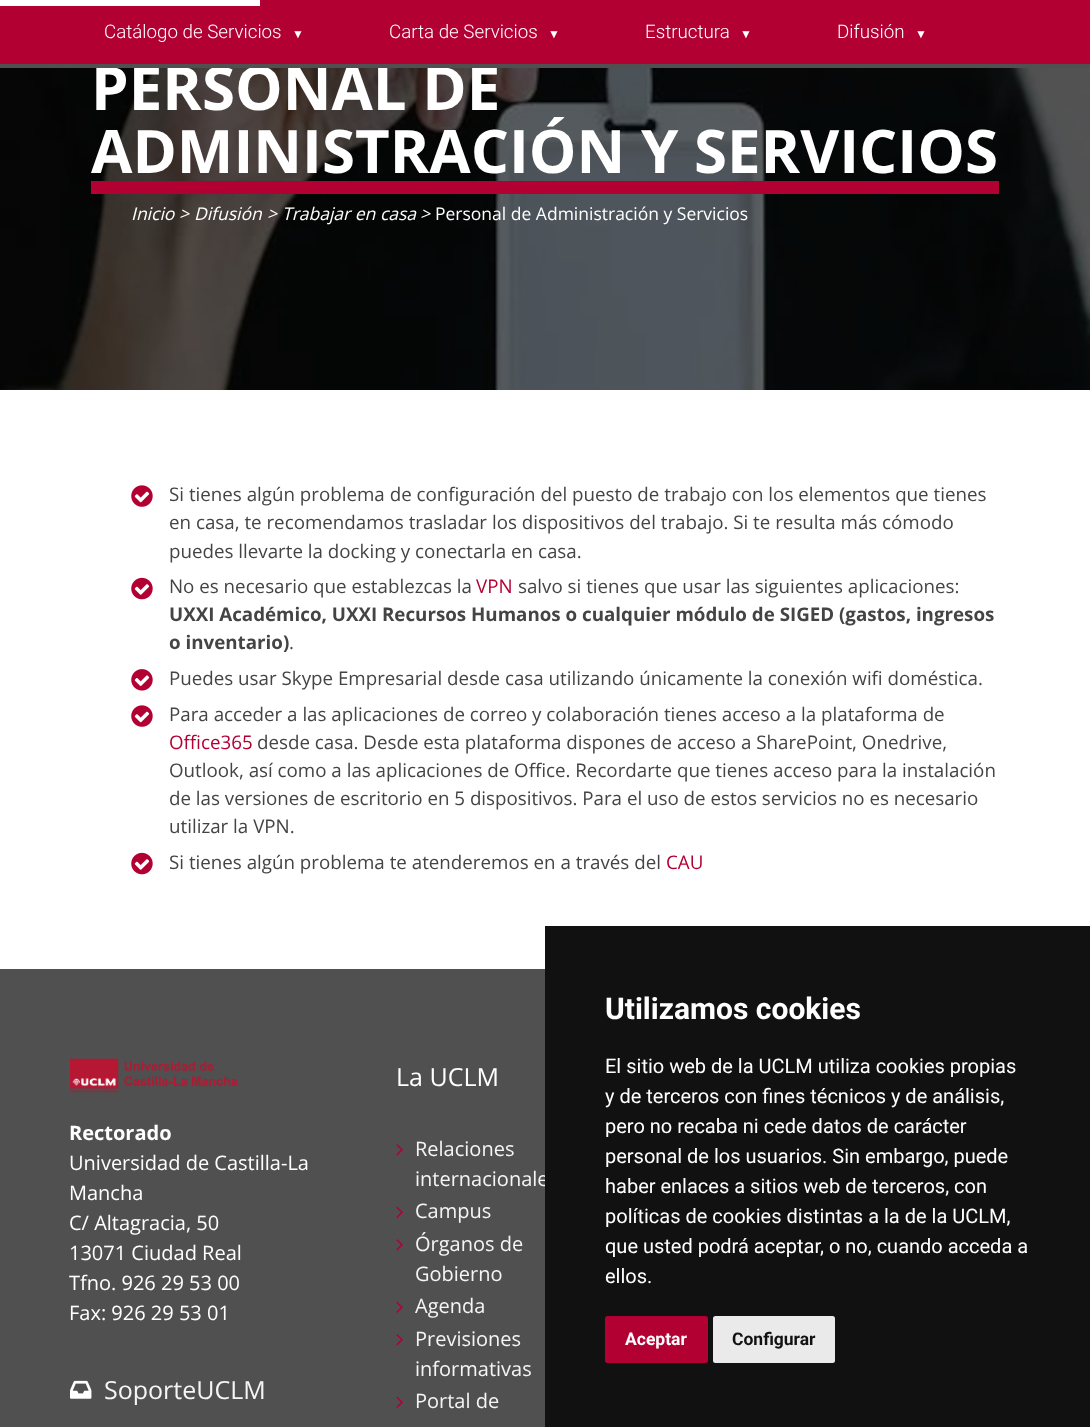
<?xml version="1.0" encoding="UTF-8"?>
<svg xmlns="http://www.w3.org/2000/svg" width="1090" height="1427">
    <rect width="100%" height="100%" fill="#FFFFFF"/>
    <rect x="0" y="0" width="1090" height="64" fill="#B30033"/>
    <rect x="0" y="0" width="260" height="6" fill="#FFFFFF"/>
    <image x="0" y="68" width="1090" height="322" href="img_01.png"/>
    <text x="91" y="110" font-family="Open Sans" font-size="60" font-weight="700" fill="#FFFFFF">PERSONAL DE</text>
    <rect x="0" y="64" width="1090" height="4" fill="#505050"/>
    <text x="104" y="38" font-family="Roboto" font-size="18.75" font-weight="300" fill="#FFFFFF">Catálogo de Servicios</text>
    <text x="292" y="38" font-family="Liberation Sans" font-size="12" fill="#FFFFFF">▼</text>
    <text x="389" y="38" font-family="Roboto" font-size="18.75" font-weight="300" fill="#FFFFFF">Carta de Servicios</text>
    <text x="548" y="38" font-family="Liberation Sans" font-size="12" fill="#FFFFFF">▼</text>
    <text x="645" y="38" font-family="Roboto" font-size="18.75" font-weight="300" fill="#FFFFFF">Estructura</text>
    <text x="740" y="38" font-family="Liberation Sans" font-size="12" fill="#FFFFFF">▼</text>
    <text x="837" y="38" font-family="Roboto" font-size="18.75" font-weight="300" fill="#FFFFFF">Difusión</text>
    <text x="915" y="38" font-family="Liberation Sans" font-size="12" fill="#FFFFFF">▼</text>
    <rect x="91" y="181" width="908" height="13" fill="#B30033"/>
    <text x="91" y="173" font-family="Open Sans" font-size="60" font-weight="700" fill="#FFFFFF">ADMINISTRACIÓN Y SERVICIOS</text>
    <text x="131" y="220" font-family="Open Sans" font-size="17.5" font-style="italic" fill="#FFFFFF">Inicio</text>
    <text x="179" y="220" font-family="Open Sans" font-size="17.5" font-style="italic" fill="#FFFFFF">&gt;</text>
    <text x="194" y="220" font-family="Open Sans" font-size="17.5" font-style="italic" fill="#FFFFFF">Difusión</text>
    <text x="267" y="220" font-family="Open Sans" font-size="17.5" font-style="italic" fill="#FFFFFF">&gt;</text>
    <text x="282" y="220" font-family="Open Sans" font-size="17.5" font-style="italic" fill="#FFFFFF">Trabajar en casa</text>
    <text x="420" y="220" font-family="Open Sans" font-size="17.5" font-style="italic" fill="#FFFFFF">&gt;</text>
    <text x="435" y="220" font-family="Open Sans" font-size="17.5" fill="#FFFFFF">Personal de Administración y Servicios</text>
    <image x="131" y="485" width="22" height="22" href="img_02.png"/>
    <text font-family="Open Sans" font-size="18.75" fill="#444444">
        <tspan x="169" y="501">Si tienes algún problema de configuración del puesto de trabajo con los elementos que tienes</tspan>
        <tspan x="169" y="529">en casa, te recomendamos trasladar los dispositivos del trabajo. Si te resulta más cómodo</tspan>
        <tspan x="169" y="558">puedes llevarte la docking y conectarla en casa.</tspan>
    </text>
    <image x="131" y="577" width="22" height="23" href="img_03.png"/>
    <text x="169" y="593" font-family="Open Sans" font-size="18.75" fill="#444444">No es necesario que establezcas la</text>
    <text x="476" y="593" font-family="Open Sans" font-size="18.75" fill="#B30033">VPN</text>
    <text x="518" y="593" font-family="Open Sans" font-size="18.75" fill="#444444">salvo si tienes que usar las siguientes aplicaciones:</text>
    <text font-family="Open Sans" font-size="18.75" font-weight="700" fill="#444444">
        <tspan x="169" y="621">UXXI Académico, UXXI Recursos Humanos o cualquier módulo de SIGED (gastos, ingresos</tspan>
        <tspan x="169" y="649">o inventario)</tspan>
    </text>
    <text x="289" y="649" font-family="Open Sans" font-size="18.75" fill="#444444">.</text>
    <image x="131" y="669" width="22" height="22" href="img_04.png"/>
    <text x="169" y="685" font-family="Open Sans" font-size="18.75" fill="#444444">Puedes usar Skype Empresarial desde casa utilizando únicamente la conexión wifi doméstica.</text>
    <image x="131" y="705" width="22" height="22" href="img_02.png"/>
    <text x="169" y="721" font-family="Open Sans" font-size="18.75" fill="#444444">Para acceder a las aplicaciones de correo y colaboración tienes acceso a la plataforma de</text>
    <text x="169" y="749" font-family="Open Sans" font-size="18.75" fill="#B30033">Office365</text>
    <text x="257" y="749" font-family="Open Sans" font-size="18.75" fill="#444444">desde casa. Desde esta plataforma dispones de acceso a SharePoint, Onedrive,</text>
    <text font-family="Open Sans" font-size="18.75" fill="#444444">
        <tspan x="169" y="777">Outlook, así como a las aplicaciones de Office. Recordarte que tienes acceso para la instalación</tspan>
        <tspan x="169" y="805">de las versiones de escritorio en 5 dispositivos. Para el uso de estos servicios no es necesario</tspan>
        <tspan x="169" y="833">utilizar la VPN.</tspan>
    </text>
    <image x="131" y="852" width="22" height="23" href="img_03.png"/>
    <text x="169" y="869" font-family="Open Sans" font-size="18.75" fill="#444444">Si tienes algún problema te atenderemos en a través del</text>
    <text x="666" y="869" font-family="Open Sans" font-size="18.75" fill="#B30033">CAU</text>
    <rect x="0" y="969" width="545" height="458" fill="#505050"/>
    <image x="70" y="1058" width="168" height="35" href="img_05.png"/>
    <text x="69" y="1140" font-family="Open Sans" font-size="20" font-weight="700" fill="#FFFFFF">Rectorado</text>
    <text font-family="Open Sans" font-size="20" fill="#FFFFFF">
        <tspan x="69" y="1170">Universidad de Castilla-La</tspan>
        <tspan x="69" y="1200">Mancha</tspan>
        <tspan x="69" y="1230">C/ Altagracia, 50</tspan>
        <tspan x="69" y="1260">13071 Ciudad Real</tspan>
        <tspan x="69" y="1290">Tfno. 926 29 53 00</tspan>
        <tspan x="69" y="1320">Fax: 926 29 53 01</tspan>
    </text>
    <image x="70" y="1380" width="22" height="19" href="img_06.png"/>
    <text x="104" y="1399" font-family="Open Sans" font-size="25" fill="#F5F5F5">SoporteUCLM</text>
    <text x="396" y="1086" font-family="Open Sans" font-size="25" fill="#FFFFFF">La UCLM</text>
    <image x="396" y="1144" width="7" height="12" href="img_07.png"/>
    <text font-family="Open Sans" font-size="20" fill="#F5F5F5">
        <tspan x="415" y="1156">Relaciones</tspan>
        <tspan x="415" y="1186">internacionale</tspan>
    </text>
    <image x="396" y="1206" width="7" height="12" href="img_08.png"/>
    <text x="415" y="1218" font-family="Open Sans" font-size="20" fill="#F5F5F5">Campus</text>
    <image x="396" y="1239" width="7" height="12" href="img_07.png"/>
    <text font-family="Open Sans" font-size="20" fill="#F5F5F5">
        <tspan x="415" y="1251">Órganos de</tspan>
        <tspan x="415" y="1281">Gobierno</tspan>
    </text>
    <image x="396" y="1301" width="7" height="12" href="img_08.png"/>
    <text x="415" y="1313" font-family="Open Sans" font-size="20" fill="#F5F5F5">Agenda</text>
    <image x="396" y="1334" width="7" height="12" href="img_07.png"/>
    <text font-family="Open Sans" font-size="20" fill="#F5F5F5">
        <tspan x="415" y="1346">Previsiones</tspan>
        <tspan x="415" y="1376">informativas</tspan>
    </text>
    <image x="396" y="1396" width="7" height="12" href="img_08.png"/>
    <text x="415" y="1408" font-family="Open Sans" font-size="20" fill="#F5F5F5">Portal de</text>
    <rect x="545" y="926" width="545" height="501" fill="#111111"/>
    <text x="605" y="1019" font-family="Roboto" font-size="30" font-weight="700" fill="#FFFFFF">Utilizamos cookies</text>
    <text font-family="Roboto" font-size="20" fill="#FFFFFF">
        <tspan x="605" y="1073">El sitio web de la UCLM utiliza cookies propias</tspan>
        <tspan x="605" y="1103">y de terceros con fines técnicos y de análisis,</tspan>
        <tspan x="605" y="1133">pero no recaba ni cede datos de carácter</tspan>
        <tspan x="605" y="1163">personal de los usuarios. Sin embargo, puede</tspan>
        <tspan x="605" y="1193">haber enlaces a sitios web de terceros, con</tspan>
        <tspan x="605" y="1223">políticas de cookies distintas a la de la UCLM,</tspan>
        <tspan x="605" y="1253">que usted podrá aceptar, o no, cuando acceda a</tspan>
        <tspan x="605" y="1283">ellos.</tspan>
    </text>
    <rect x="605" y="1316" width="103" height="47" rx="2.5" fill="#B30033"/>
    <text x="625" y="1345" font-family="Roboto" font-size="17.5" font-weight="700" fill="#FFFFFF">Aceptar</text>
    <rect x="713" y="1316" width="122" height="47" rx="2.5" fill="#EAEAEA"/>
    <text x="732" y="1345" font-family="Roboto" font-size="17.5" font-weight="700" fill="#111111">Configurar</text>
</svg>
